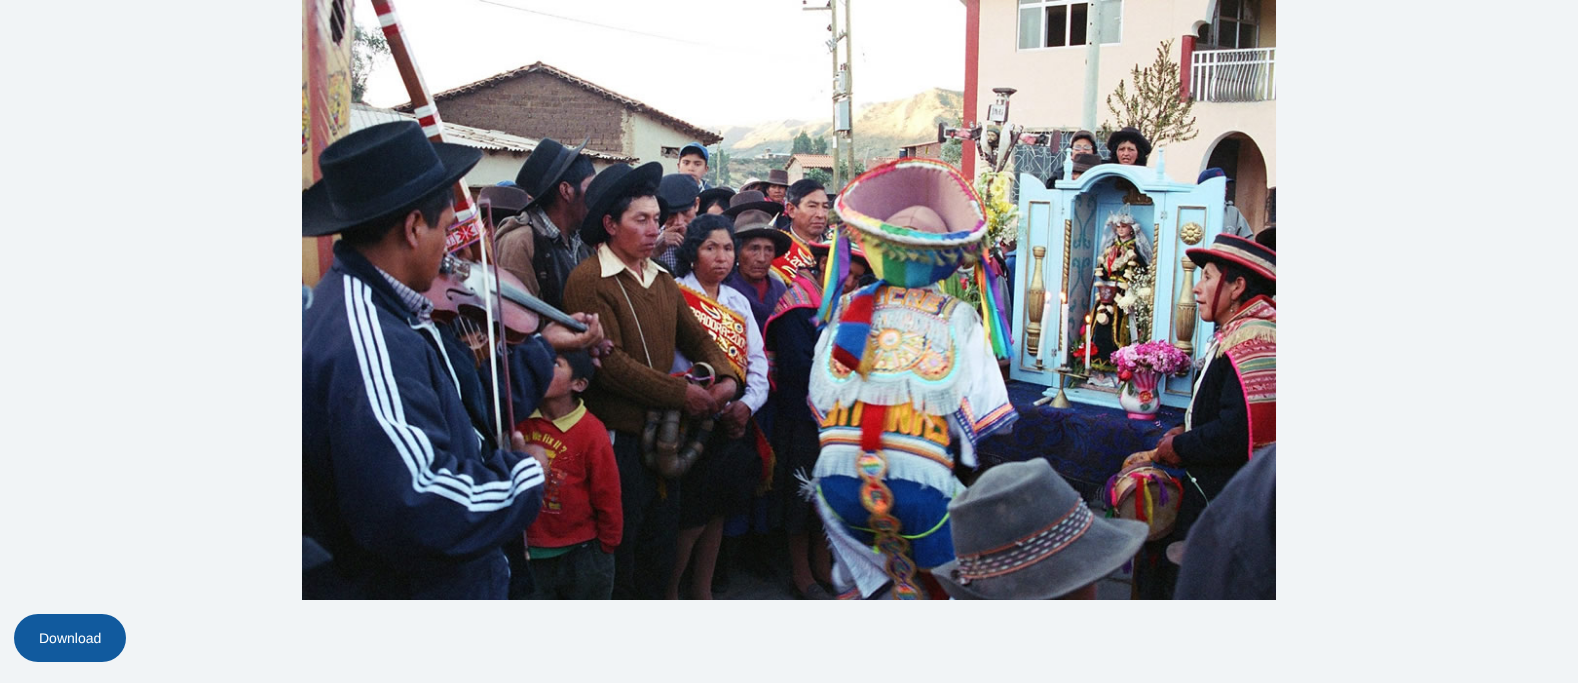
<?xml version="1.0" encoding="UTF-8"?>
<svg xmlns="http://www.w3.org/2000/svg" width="1578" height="683">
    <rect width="100%" height="100%" fill="#F1F4F6"/>
    <image x="302" y="0" width="974" height="600" href="img_01.png"/>
    <rect x="14" y="614" width="112" height="48" rx="24" fill="#115A9E"/>
    <text x="39" y="643" font-family="Liberation Sans" font-size="14" fill="#FFFFFF">Download</text>
</svg>
